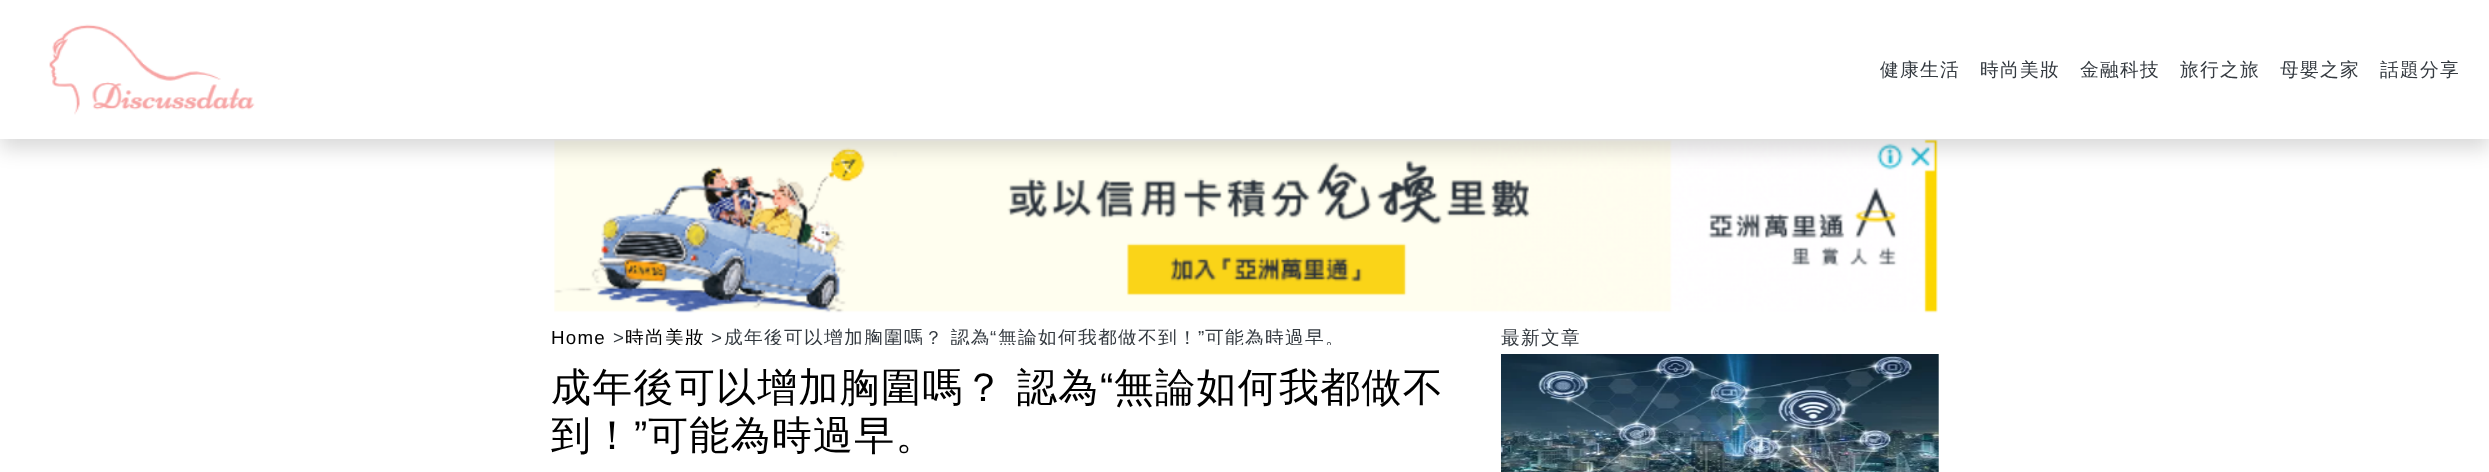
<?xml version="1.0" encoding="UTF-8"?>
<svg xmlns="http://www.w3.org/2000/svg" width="2489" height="472">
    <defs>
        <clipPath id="clip1"><path d="M 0 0 H 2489 V 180 H 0 Z M 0 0 H 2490 V 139 H 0 Z" clip-rule="evenodd"/></clipPath>
        <filter id="blur1" x="-50%" y="-200%" width="200%" height="500%"><feGaussianBlur stdDeviation="10"/></filter>
        <clipPath id="clip2"><rect x="551" y="320" width="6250" height="25" rx="5"/></clipPath>
    </defs>
    <rect width="100%" height="100%" fill="#FFFFFF"/>
    <image x="554" y="139" width="1384" height="174" href="img_02.png"/>
    <g clip-path="url(#clip1)">
        <rect x="0" y="10" width="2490" height="139" fill="#000000" fill-opacity="0.15" filter="url(#blur1)"/>
    </g>
    <image x="49" y="24" width="206" height="91" href="img_01.png"/>
    <text x="1880" y="76" font-family="WenQuanYi Zen Hei" font-size="18.75" font-weight="500" letter-spacing="1.25" fill="#343A40">健康生活</text>
    <text x="1980" y="76" font-family="WenQuanYi Zen Hei" font-size="18.75" font-weight="500" letter-spacing="1.25" fill="#343A40">時尚美妝</text>
    <text x="2080" y="76" font-family="WenQuanYi Zen Hei" font-size="18.75" font-weight="500" letter-spacing="1.25" fill="#343A40">金融科技</text>
    <text x="2180" y="76" font-family="WenQuanYi Zen Hei" font-size="18.75" font-weight="500" letter-spacing="1.25" fill="#343A40">旅行之旅</text>
    <text x="2280" y="76" font-family="WenQuanYi Zen Hei" font-size="18.75" font-weight="500" letter-spacing="1.25" fill="#343A40">母嬰之家</text>
    <text x="2380" y="76" font-family="WenQuanYi Zen Hei" font-size="18.75" font-weight="500" letter-spacing="1.25" fill="#343A40">話題分享</text>
    <text x="551" y="344" font-family="Liberation Sans" font-size="18.75" letter-spacing="1.25" fill="#000000">Home</text>
    <text x="613" y="344" font-family="Liberation Sans" font-size="18.75" letter-spacing="1.25" fill="#343A40">&gt;</text>
    <g clip-path="url(#clip2)">
        <text x="625" y="344" font-family="WenQuanYi Zen Hei" font-size="18.75" font-weight="500" letter-spacing="1.25" fill="#000000">時尚美妝</text>
    </g>
    <text x="711" y="344" font-family="Liberation Sans" font-size="18.75" letter-spacing="1.25" fill="#343A40">&gt;</text>
    <g clip-path="url(#clip2)">
        <text x="724" y="344" font-family="WenQuanYi Zen Hei" font-size="18.75" font-weight="500" letter-spacing="1.25" fill="#343A40">成年後可以增加胸圍嗎？ 認為</text>
    </g>
    <text x="990" y="344" font-family="Liberation Sans" font-size="18.75" letter-spacing="1.25" fill="#343A40">“</text>
    <g clip-path="url(#clip2)">
        <text x="998" y="344" font-family="WenQuanYi Zen Hei" font-size="18.75" font-weight="500" letter-spacing="1.25" fill="#343A40">無論如何我都做不到！</text>
    </g>
    <text x="1198" y="344" font-family="Liberation Sans" font-size="18.75" letter-spacing="1.25" fill="#343A40">”</text>
    <g clip-path="url(#clip2)">
        <text x="1205" y="344" font-family="WenQuanYi Zen Hei" font-size="18.75" font-weight="500" letter-spacing="1.25" fill="#343A40">可能為時過早。</text>
    </g>
    <text x="551" y="401" word-spacing="-1" font-family="WenQuanYi Zen Hei" font-size="40" font-weight="500" letter-spacing="1.25" fill="#000000">成年後可以增加胸圍嗎？ 認為</text>
    <text x="1100" y="401" font-family="Liberation Sans" font-size="40" letter-spacing="1.25" fill="#000000">“</text>
    <text x="1114" y="401" font-family="WenQuanYi Zen Hei" font-size="40" font-weight="500" letter-spacing="1.25" fill="#000000">無論如何我都做不</text>
    <text x="551" y="449" font-family="WenQuanYi Zen Hei" font-size="40" font-weight="500" letter-spacing="1.25" fill="#000000">到！</text>
    <text x="634" y="449" font-family="Liberation Sans" font-size="40" letter-spacing="1.25" fill="#000000">”</text>
    <text x="648" y="449" font-family="WenQuanYi Zen Hei" font-size="40" font-weight="500" letter-spacing="1.25" fill="#000000">可能為時過早。</text>
    <text x="1501" y="344" font-family="WenQuanYi Zen Hei" font-size="18.75" font-weight="500" letter-spacing="1.25" fill="#343A40">最新文章</text>
    <image x="1501" y="354" width="438" height="118" href="img_03.png"/>
</svg>
